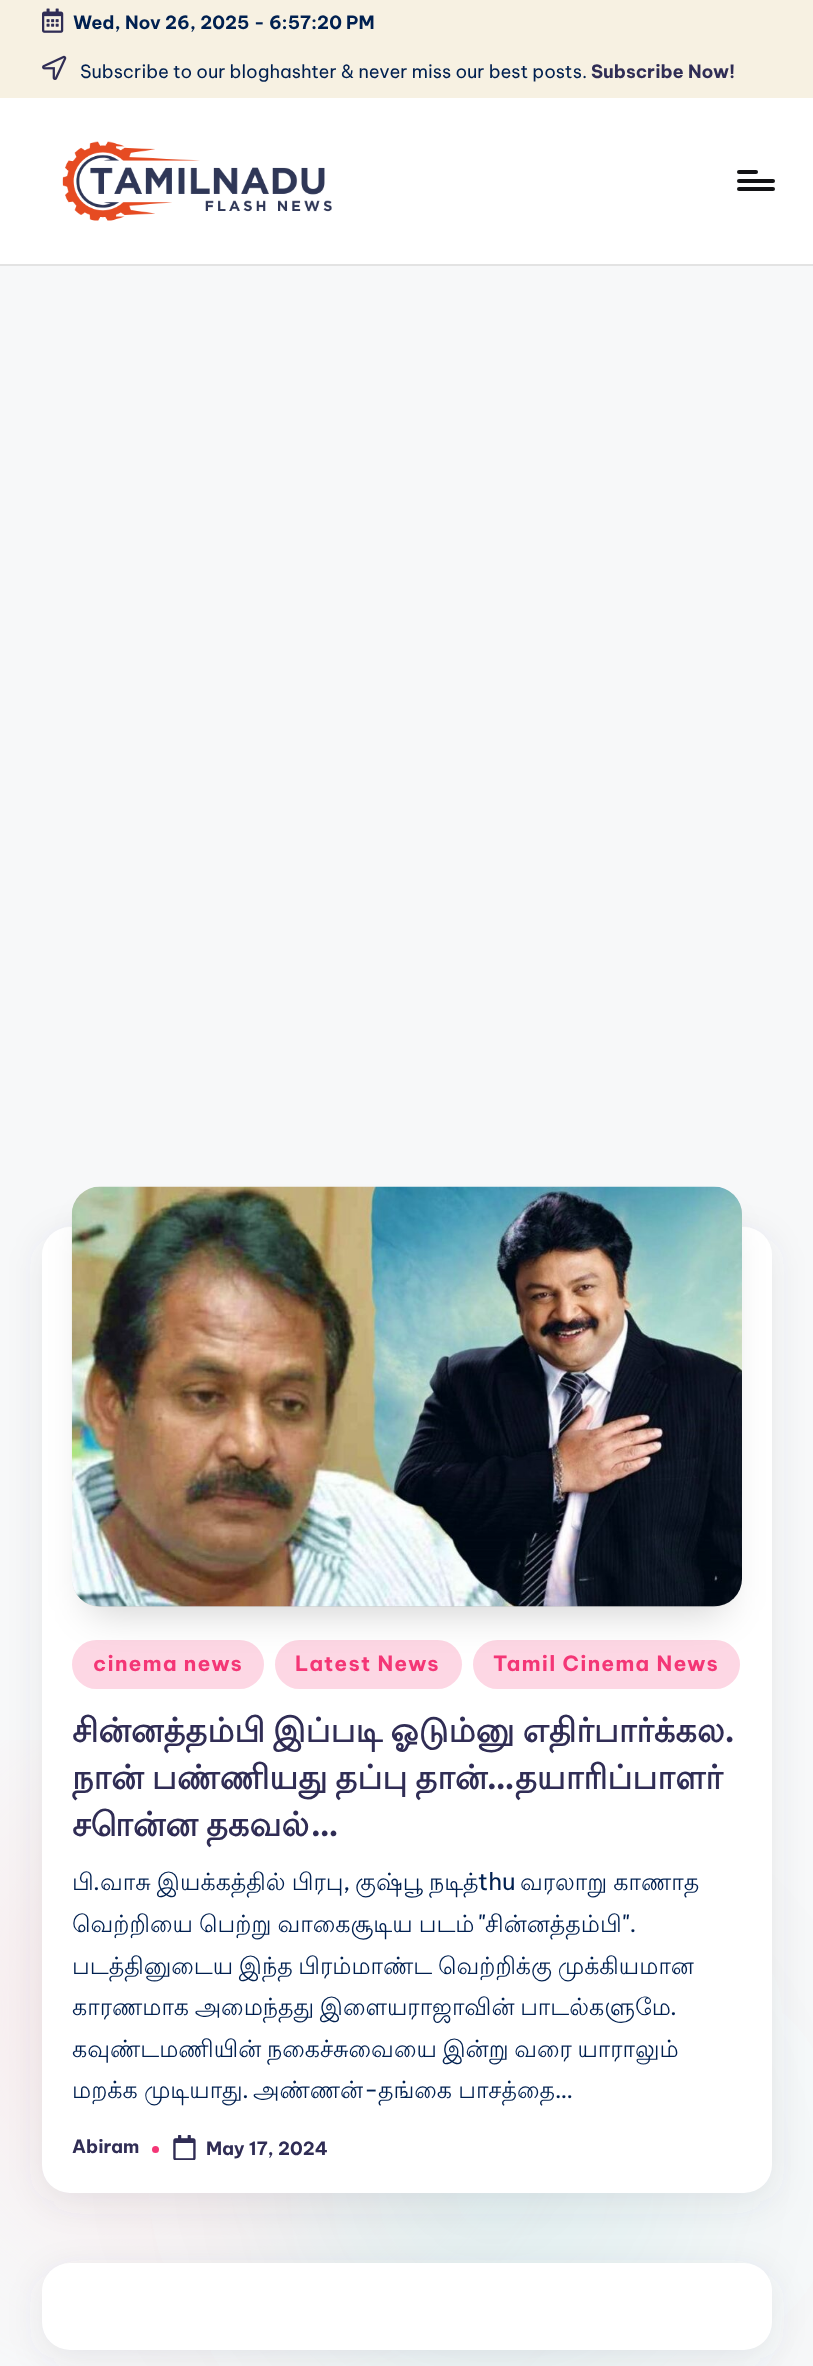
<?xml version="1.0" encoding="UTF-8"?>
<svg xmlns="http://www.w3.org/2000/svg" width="813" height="2366">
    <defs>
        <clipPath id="clip1"><rect x="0" y="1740" width="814" height="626"/></clipPath>
        <filter id="blur1" x="-50%" y="-200%" width="200%" height="500%"><feGaussianBlur stdDeviation="112"/></filter>
        <filter id="blur2" x="-50%" y="-200%" width="200%" height="500%"><feGaussianBlur stdDeviation="17.5"/></filter>
        <filter id="blur3" x="-50%" y="-200%" width="200%" height="500%"><feGaussianBlur stdDeviation="19.5"/></filter>
    </defs>
    <rect width="100%" height="100%" fill="#F7F8F9"/>
    <rect x="0" y="0" width="813" height="98" fill="#F7F1E2"/>
    <image x="42" y="8" width="22" height="25" href="img_01.png"/>
    <text x="73" y="29" font-family="Be Vietnam Pro" font-size="18.2" font-weight="700" fill="#002050">Wed, Nov 26, 2025 - 6:57:20 PM</text>
    <image x="42" y="55" width="25" height="25" href="img_02.png"/>
    <text x="80" y="78" font-family="Be Vietnam Pro" font-size="18.2" fill="#002050">Subscribe to our bloghashter &amp; never miss our best posts.</text>
    <text x="591" y="78" font-family="Be Vietnam Pro" font-size="18.2" font-weight="700" fill="#302D55">Subscribe Now!</text>
    <rect x="0" y="98" width="813" height="166" fill="#FFFFFF"/>
    <rect x="0" y="264" width="813" height="2" fill="#E3E3E3"/>
    <image x="62" y="141" width="270" height="80" href="img_03.png"/>
    <rect x="737" y="179" width="38" height="4" rx="2" fill="#131315"/>
    <rect x="737" y="170" width="21" height="4" rx="2" fill="#131315"/>
    <rect x="737" y="187" width="38" height="4" rx="2" fill="#131315"/>
    <g clip-path="url(#clip1)">
        <rect x="0" y="1810" width="403" height="402" rx="201" fill="#F7E3E5" filter="url(#blur1)"/>
    </g>
    <rect x="291" y="1964" width="404" height="402" rx="201" fill="#04868B" fill-opacity="0.1" filter="url(#blur1)"/>
    <rect x="42" y="1236" width="730" height="966" rx="28" fill="#454360" fill-opacity="0.1" filter="url(#blur2)"/>
    <rect x="42" y="1227" width="730" height="966" rx="28" fill="#FFFFFF"/>
    <rect x="72" y="1640" width="192" height="49" rx="24.5" fill="#FDD7E4"/>
    <rect x="275" y="1640" width="187" height="49" rx="24.5" fill="#FDD7E4"/>
    <rect x="473" y="1640" width="267" height="49" rx="24.5" fill="#FDD7E4"/>
    <rect x="89" y="1225" width="636" height="387" rx="11" fill="#000000" fill-opacity="0.18" filter="url(#blur3)"/>
    <rect x="72" y="1187" width="670" height="420" rx="28" fill="#D1D1D1"/>
    <image x="71" y="1186" width="671" height="421" href="img_04.png"/>
    <text x="93" y="1671" font-family="Be Vietnam Pro" font-size="21" font-weight="700" letter-spacing="1.25" fill="#F43676">cinema news</text>
    <text x="295" y="1671" font-family="Be Vietnam Pro" font-size="21" font-weight="700" letter-spacing="1.25" fill="#F43676">Latest News</text>
    <text x="493" y="1671" font-family="Be Vietnam Pro" font-size="21" font-weight="700" letter-spacing="1.25" fill="#F43676">Tamil Cinema News</text>
    <text x="72" y="1742" word-spacing="-2" font-family="Lohit Tamil" font-size="33.6" font-weight="700" fill="#302D55">சின்னத்தம்பி இப்படி ஓடும்னு எதிர்பார்க்கல</text>
    <text x="724" y="1742" font-family="Be Vietnam Pro" font-size="33.6" font-weight="700" fill="#302D55">.</text>
    <text x="72" y="1789" word-spacing="-2" font-family="Lohit Tamil" font-size="33.6" font-weight="700" fill="#302D55">நான் பண்ணியது தப்பு தான்</text>
    <text x="486" y="1789" font-family="Be Vietnam Pro" font-size="33.6" font-weight="700" fill="#302D55">…</text>
    <text x="515" y="1789" font-family="Lohit Tamil" font-size="33.6" font-weight="700" fill="#302D55">தயாரிப்பாளர்</text>
    <text x="72" y="1836" word-spacing="-2" font-family="Lohit Tamil" font-size="33.6" font-weight="700" fill="#302D55">சொன்ன தகவல்</text>
    <text x="310" y="1836" font-family="Be Vietnam Pro" font-size="33.6" font-weight="700" fill="#302D55">…</text>
    <text x="72" y="1890" font-family="Lohit Tamil" font-size="23.8" fill="#002050">பி</text>
    <text x="93" y="1890" font-family="Be Vietnam Pro" font-size="23.8" fill="#002050">.</text>
    <text x="100" y="1890" word-spacing="-1" font-family="Lohit Tamil" font-size="23.8" fill="#002050">வாசு இயக்கத்தில் பிரபு</text>
    <text x="343" y="1890" font-family="Be Vietnam Pro" font-size="23.8" fill="#002050">,</text>
    <text x="355" y="1890" word-spacing="-1" font-family="Lohit Tamil" font-size="23.8" fill="#002050">குஷ்பூ நடித்</text>
    <text x="478" y="1890" font-family="Be Vietnam Pro" font-size="23.8" fill="#002050">thu</text>
    <text x="520" y="1890" word-spacing="-1" font-family="Lohit Tamil" font-size="23.8" fill="#002050">வரலாறு காணாத</text>
    <text x="72" y="1932" word-spacing="-1" font-family="Lohit Tamil" font-size="23.8" fill="#002050">வெற்றியை பெற்று வாகைசூடிய படம்</text>
    <text x="478" y="1932" font-family="Be Vietnam Pro" font-size="23.8" fill="#002050">"</text>
    <text x="485" y="1932" font-family="Lohit Tamil" font-size="23.8" fill="#002050">சின்னத்தம்பி</text>
    <text x="622" y="1932" font-family="Be Vietnam Pro" font-size="23.8" fill="#002050">".</text>
    <text font-family="Lohit Tamil" font-size="23.8" fill="#002050">
        <tspan x="72" y="1974" word-spacing="-1.5">படத்தினுடைய இந்த பிரம்மாண்ட வெற்றிக்கு முக்கியமான</tspan>
        <tspan x="72" y="2015" word-spacing="-1.5">காரணமாக அமைந்தது இளையராஜாவின் பாடல்களுமே</tspan>
    </text>
    <text x="670" y="2015" font-family="Be Vietnam Pro" font-size="23.8" fill="#002050">.</text>
    <text font-family="Lohit Tamil" font-size="23.8" fill="#002050">
        <tspan x="72" y="2057" word-spacing="-1.5">கவுண்டமணியின் நகைச்சுவையை இன்று வரை யாராலும்</tspan>
        <tspan x="72" y="2098" word-spacing="-1">மறக்க முடியாது</tspan>
    </text>
    <text x="253" y="2098" font-family="Lohit Tamil" font-size="23.8" fill="#002050">அண்ணன்</text>
    <text x="364" y="2098" font-family="Be Vietnam Pro" font-size="23.8" fill="#002050">-</text>
    <text x="378" y="2098" word-spacing="-1" font-family="Lohit Tamil" font-size="23.8" fill="#002050">தங்கை பாசத்தை</text>
    <text x="242" y="2098" font-family="Be Vietnam Pro" font-size="23.8" fill="#002050">.</text>
    <text x="555" y="2098" font-family="Be Vietnam Pro" font-size="23.8" fill="#002050">…</text>
    <text x="72" y="2153" font-family="Be Vietnam Pro" font-size="18.2" font-weight="700" fill="#302D55">Abiram</text>
    <circle cx="155.5" cy="2149.5" r="3.5" fill="#F43676"/>
    <image x="173" y="2135" width="23" height="25" href="img_05.png"/>
    <text x="206" y="2155" font-family="Be Vietnam Pro" font-size="18.2" font-weight="700" fill="#302D55">May 17, 2024</text>
    <rect x="42" y="2272" width="730" height="87" rx="28" fill="#454360" fill-opacity="0.1" filter="url(#blur2)"/>
    <rect x="42" y="2263" width="730" height="87" rx="28" fill="#FFFFFF"/>
</svg>
